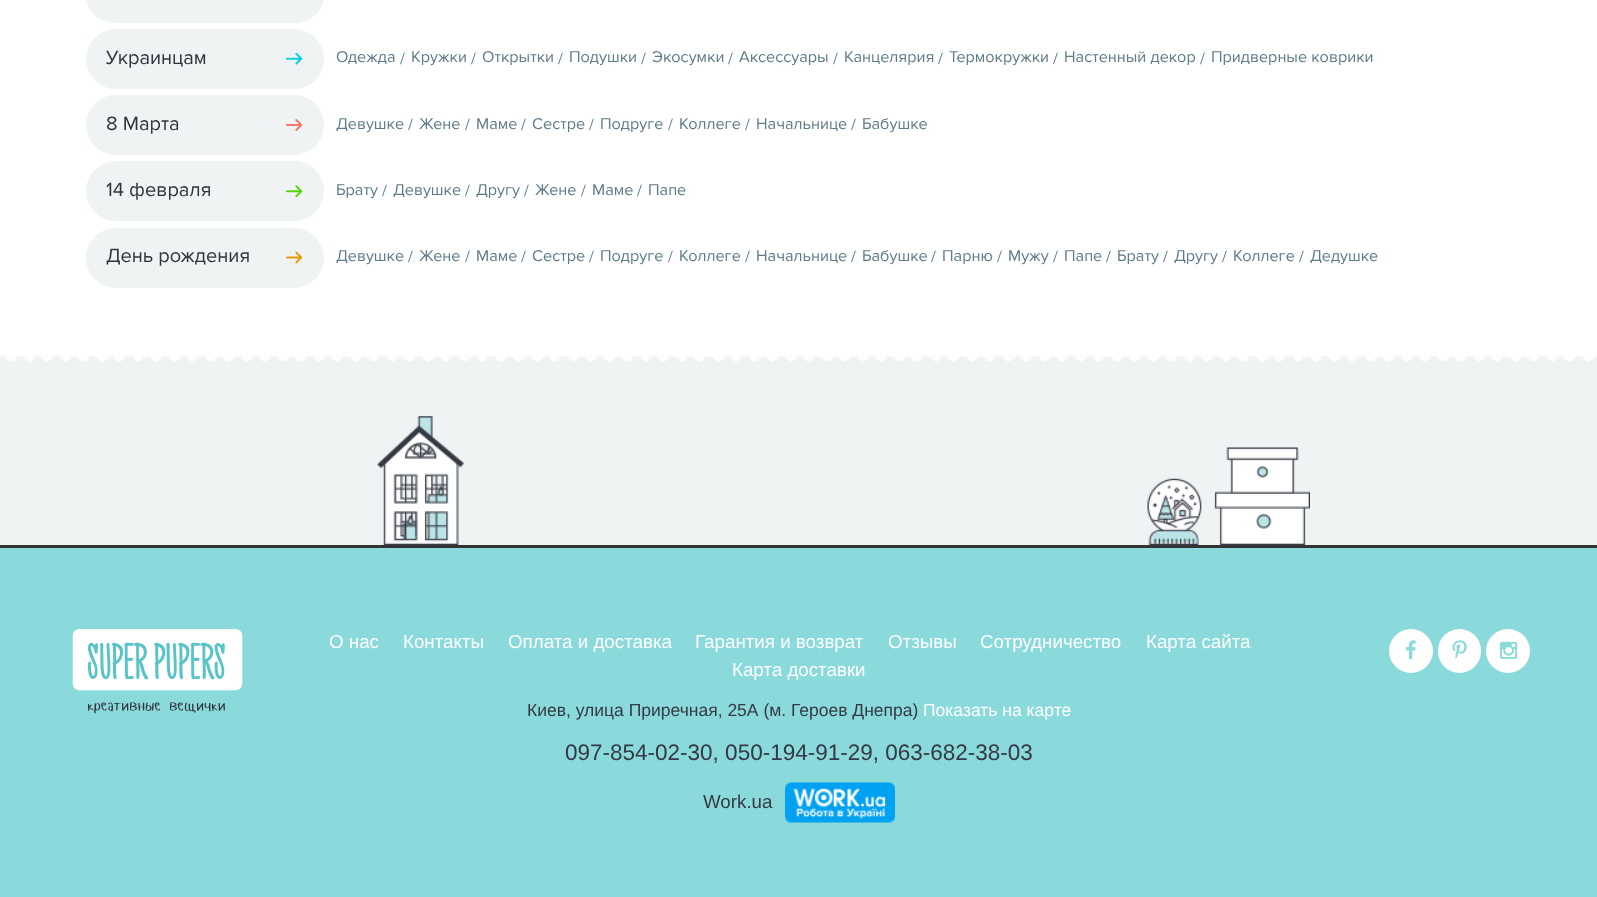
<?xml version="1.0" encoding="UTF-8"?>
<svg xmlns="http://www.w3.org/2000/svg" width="1597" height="897">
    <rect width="100%" height="100%" fill="#FFFFFF"/>
    <rect x="86" y="-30" width="238" height="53" rx="30" fill="#EFF3F4"/>
    <rect x="86" y="29" width="238" height="60" rx="30" fill="#EFF3F4"/>
    <text x="106" y="64" font-family="Proxima Nova" font-size="20" fill="#2F353E">Украинцам</text>
    <image x="286" y="53" width="17" height="12" href="img_01.png"/>
    <text x="336" y="62" font-family="Proxima Nova" font-size="16.25" fill="#5E7B89">Одежда</text>
    <text x="400" y="64" font-family="Proxima Nova" font-size="16.25" fill="#5E7B89">/</text>
    <text x="411" y="62" font-family="Proxima Nova" font-size="16.25" fill="#5E7B89">Кружки</text>
    <text x="471" y="64" font-family="Proxima Nova" font-size="16.25" fill="#5E7B89">/</text>
    <text x="482" y="62" font-family="Proxima Nova" font-size="16.25" fill="#5E7B89">Открытки</text>
    <text x="558" y="64" font-family="Proxima Nova" font-size="16.25" fill="#5E7B89">/</text>
    <text x="569" y="62" font-family="Proxima Nova" font-size="16.25" fill="#5E7B89">Подушки</text>
    <text x="641" y="64" font-family="Proxima Nova" font-size="16.25" fill="#5E7B89">/</text>
    <text x="652" y="62" font-family="Proxima Nova" font-size="16.25" fill="#5E7B89">Экосумки</text>
    <text x="728" y="64" font-family="Proxima Nova" font-size="16.25" fill="#5E7B89">/</text>
    <text x="739" y="62" font-family="Proxima Nova" font-size="16.25" fill="#5E7B89">Аксессуары</text>
    <text x="833" y="64" font-family="Proxima Nova" font-size="16.25" fill="#5E7B89">/</text>
    <text x="844" y="62" font-family="Proxima Nova" font-size="16.25" fill="#5E7B89">Канцелярия</text>
    <text x="938" y="64" font-family="Proxima Nova" font-size="16.25" fill="#5E7B89">/</text>
    <text x="949" y="62" font-family="Proxima Nova" font-size="16.25" fill="#5E7B89">Термокружки</text>
    <text x="1053" y="64" font-family="Proxima Nova" font-size="16.25" fill="#5E7B89">/</text>
    <text x="1064" y="62" font-family="Proxima Nova" font-size="16.25" fill="#5E7B89">Настенный декор</text>
    <text x="1200" y="64" font-family="Proxima Nova" font-size="16.25" fill="#5E7B89">/</text>
    <text x="1211" y="62" font-family="Proxima Nova" font-size="16.25" fill="#5E7B89">Придверные коврики</text>
    <rect x="86" y="95" width="238" height="60" rx="30" fill="#EFF3F4"/>
    <text x="106" y="130" font-family="Proxima Nova" font-size="20" fill="#2F353E">8 Марта</text>
    <image x="286" y="119" width="17" height="12" href="img_02.png"/>
    <text x="336" y="129" font-family="Proxima Nova" font-size="16.25" fill="#5E7B89">Девушке</text>
    <text x="408" y="130" font-family="Proxima Nova" font-size="16.25" fill="#5E7B89">/</text>
    <text x="419" y="129" font-family="Proxima Nova" font-size="16.25" fill="#5E7B89">Жене</text>
    <text x="465" y="130" font-family="Proxima Nova" font-size="16.25" fill="#5E7B89">/</text>
    <text x="476" y="129" font-family="Proxima Nova" font-size="16.25" fill="#5E7B89">Маме</text>
    <text x="521" y="130" font-family="Proxima Nova" font-size="16.25" fill="#5E7B89">/</text>
    <text x="532" y="129" font-family="Proxima Nova" font-size="16.25" fill="#5E7B89">Сестре</text>
    <text x="589" y="130" font-family="Proxima Nova" font-size="16.25" fill="#5E7B89">/</text>
    <text x="600" y="129" font-family="Proxima Nova" font-size="16.25" fill="#5E7B89">Подруге</text>
    <text x="668" y="130" font-family="Proxima Nova" font-size="16.25" fill="#5E7B89">/</text>
    <text x="679" y="129" font-family="Proxima Nova" font-size="16.25" fill="#5E7B89">Коллеге</text>
    <text x="745" y="130" font-family="Proxima Nova" font-size="16.25" fill="#5E7B89">/</text>
    <text x="756" y="129" font-family="Proxima Nova" font-size="16.25" fill="#5E7B89">Начальнице</text>
    <text x="851" y="130" font-family="Proxima Nova" font-size="16.25" fill="#5E7B89">/</text>
    <text x="862" y="129" font-family="Proxima Nova" font-size="16.25" fill="#5E7B89">Бабушке</text>
    <rect x="86" y="161" width="238" height="60" rx="30" fill="#EFF3F4"/>
    <text x="106" y="196" font-family="Proxima Nova" font-size="20" fill="#2F353E">14 февраля</text>
    <image x="286" y="185" width="17" height="13" href="img_03.png"/>
    <text x="336" y="195" font-family="Proxima Nova" font-size="16.25" fill="#5E7B89">Брату</text>
    <text x="382" y="196" font-family="Proxima Nova" font-size="16.25" fill="#5E7B89">/</text>
    <text x="393" y="195" font-family="Proxima Nova" font-size="16.25" fill="#5E7B89">Девушке</text>
    <text x="465" y="196" font-family="Proxima Nova" font-size="16.25" fill="#5E7B89">/</text>
    <text x="476" y="195" font-family="Proxima Nova" font-size="16.25" fill="#5E7B89">Другу</text>
    <text x="524" y="196" font-family="Proxima Nova" font-size="16.25" fill="#5E7B89">/</text>
    <text x="535" y="195" font-family="Proxima Nova" font-size="16.25" fill="#5E7B89">Жене</text>
    <text x="581" y="196" font-family="Proxima Nova" font-size="16.25" fill="#5E7B89">/</text>
    <text x="592" y="195" font-family="Proxima Nova" font-size="16.25" fill="#5E7B89">Маме</text>
    <text x="637" y="196" font-family="Proxima Nova" font-size="16.25" fill="#5E7B89">/</text>
    <text x="648" y="195" font-family="Proxima Nova" font-size="16.25" fill="#5E7B89">Папе</text>
    <rect x="86" y="228" width="238" height="60" rx="30" fill="#EFF3F4"/>
    <text x="106" y="262" font-family="Proxima Nova" font-size="20" fill="#2F353E">День рождения</text>
    <image x="286" y="251" width="17" height="13" href="img_04.png"/>
    <text x="336" y="261" font-family="Proxima Nova" font-size="16.25" fill="#5E7B89">Девушке</text>
    <text x="408" y="262" font-family="Proxima Nova" font-size="16.25" fill="#5E7B89">/</text>
    <text x="419" y="261" font-family="Proxima Nova" font-size="16.25" fill="#5E7B89">Жене</text>
    <text x="465" y="262" font-family="Proxima Nova" font-size="16.25" fill="#5E7B89">/</text>
    <text x="476" y="261" font-family="Proxima Nova" font-size="16.25" fill="#5E7B89">Маме</text>
    <text x="521" y="262" font-family="Proxima Nova" font-size="16.25" fill="#5E7B89">/</text>
    <text x="532" y="261" font-family="Proxima Nova" font-size="16.25" fill="#5E7B89">Сестре</text>
    <text x="589" y="262" font-family="Proxima Nova" font-size="16.25" fill="#5E7B89">/</text>
    <text x="600" y="261" font-family="Proxima Nova" font-size="16.25" fill="#5E7B89">Подруге</text>
    <text x="668" y="262" font-family="Proxima Nova" font-size="16.25" fill="#5E7B89">/</text>
    <text x="679" y="261" font-family="Proxima Nova" font-size="16.25" fill="#5E7B89">Коллеге</text>
    <text x="745" y="262" font-family="Proxima Nova" font-size="16.25" fill="#5E7B89">/</text>
    <text x="756" y="261" font-family="Proxima Nova" font-size="16.25" fill="#5E7B89">Начальнице</text>
    <text x="851" y="262" font-family="Proxima Nova" font-size="16.25" fill="#5E7B89">/</text>
    <text x="862" y="261" font-family="Proxima Nova" font-size="16.25" fill="#5E7B89">Бабушке</text>
    <text x="931" y="262" font-family="Proxima Nova" font-size="16.25" fill="#5E7B89">/</text>
    <text x="942" y="261" font-family="Proxima Nova" font-size="16.25" fill="#5E7B89">Парню</text>
    <text x="997" y="262" font-family="Proxima Nova" font-size="16.25" fill="#5E7B89">/</text>
    <text x="1008" y="261" font-family="Proxima Nova" font-size="16.25" fill="#5E7B89">Мужу</text>
    <text x="1053" y="262" font-family="Proxima Nova" font-size="16.25" fill="#5E7B89">/</text>
    <text x="1064" y="261" font-family="Proxima Nova" font-size="16.25" fill="#5E7B89">Папе</text>
    <text x="1106" y="262" font-family="Proxima Nova" font-size="16.25" fill="#5E7B89">/</text>
    <text x="1117" y="261" font-family="Proxima Nova" font-size="16.25" fill="#5E7B89">Брату</text>
    <text x="1163" y="262" font-family="Proxima Nova" font-size="16.25" fill="#5E7B89">/</text>
    <text x="1174" y="261" font-family="Proxima Nova" font-size="16.25" fill="#5E7B89">Другу</text>
    <text x="1222" y="262" font-family="Proxima Nova" font-size="16.25" fill="#5E7B89">/</text>
    <text x="1233" y="261" font-family="Proxima Nova" font-size="16.25" fill="#5E7B89">Коллеге</text>
    <text x="1299" y="262" font-family="Proxima Nova" font-size="16.25" fill="#5E7B89">/</text>
    <text x="1310" y="261" font-family="Proxima Nova" font-size="16.25" fill="#5E7B89">Дедушке</text>
    <rect x="0" y="356" width="1597" height="189" fill="#EFF3F4"/>
    <image x="0" y="356" width="1596" height="189" href="img_05.png"/>
    <rect x="0" y="545" width="1597" height="3" fill="#333333"/>
    <rect x="0" y="548" width="1597" height="349" fill="#8ADADB"/>
    <image x="72" y="629" width="171" height="85" href="img_06.png"/>
    <text x="329" y="648" font-family="Liberation Sans" font-size="18.75" fill="#FFFFFF">О нас</text>
    <text x="403" y="648" font-family="Liberation Sans" font-size="18.75" fill="#FFFFFF">Контакты</text>
    <text x="508" y="648" font-family="Liberation Sans" font-size="18.75" fill="#FFFFFF">Оплата и доставка</text>
    <text x="695" y="648" font-family="Liberation Sans" font-size="18.75" fill="#FFFFFF">Гарантия и возврат</text>
    <text x="888" y="648" font-family="Liberation Sans" font-size="18.75" fill="#FFFFFF">Отзывы</text>
    <text x="980" y="648" font-family="Liberation Sans" font-size="18.75" fill="#FFFFFF">Сотрудничество</text>
    <text x="1146" y="648" font-family="Liberation Sans" font-size="18.75" fill="#FFFFFF">Карта сайта</text>
    <text x="732" y="676" font-family="Liberation Sans" font-size="18.75" fill="#FFFFFF">Карта доставки</text>
    <text x="527" y="716" font-family="Liberation Sans" font-size="17.5" fill="#353943">Киев, улица Приречная, 25А (м. Героев Днепра)</text>
    <text x="923" y="716" font-family="Liberation Sans" font-size="17.5" fill="#FFFFFF">Показать на карте</text>
    <text x="565" y="760" font-family="Liberation Sans" font-size="22.5" fill="#353943">097-854-02-30, 050-194-91-29, 063-682-38-03</text>
    <text x="703" y="808" font-family="Liberation Sans" font-size="18.75" fill="#353943">Work.ua</text>
    <image x="785" y="782" width="110" height="41" href="img_07.png"/>
    <circle cx="1411" cy="651" r="22" fill="#FFFFFF"/>
    <image x="1406" y="640" width="10" height="19" href="img_08.png"/>
    <rect x="1438" y="629" width="43" height="44" rx="21.5" fill="#FFFFFF"/>
    <image x="1452" y="640" width="15" height="19" href="img_09.png"/>
    <circle cx="1508" cy="651" r="22" fill="#FFFFFF"/>
    <image x="1500" y="641" width="18" height="18" href="img_10.png"/>
</svg>
